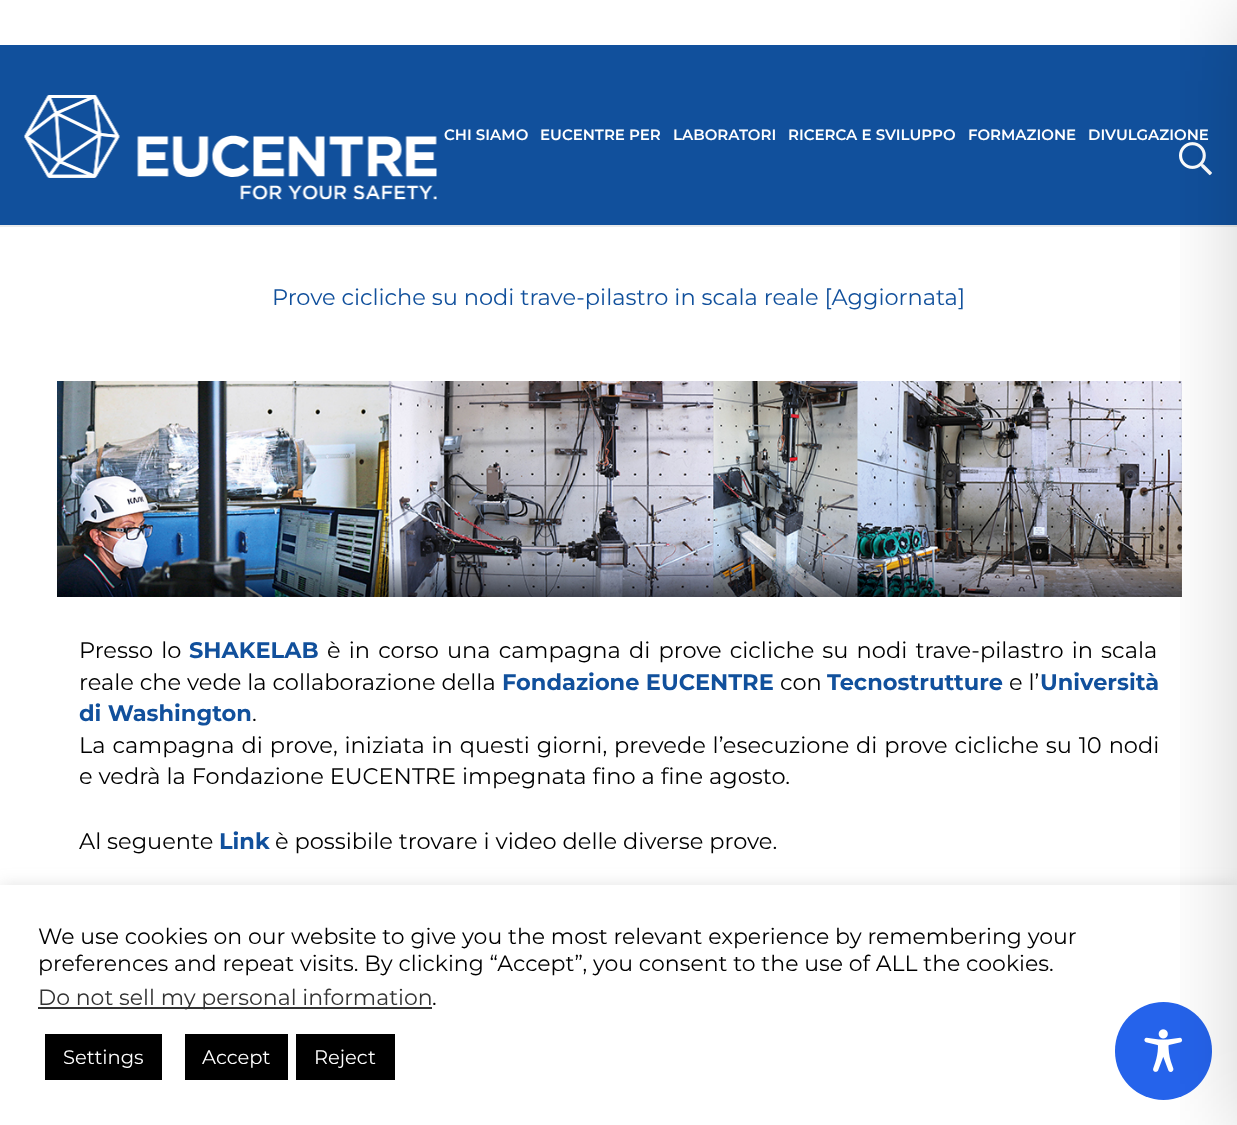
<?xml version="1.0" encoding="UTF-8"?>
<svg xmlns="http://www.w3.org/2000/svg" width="1237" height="1125">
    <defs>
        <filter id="blur1" x="-50%" y="-200%" width="200%" height="500%"><feGaussianBlur stdDeviation="7.5"/></filter>
        <filter id="blur2" x="-50%" y="-200%" width="200%" height="500%"><feGaussianBlur stdDeviation="45"/></filter>
    </defs>
    <rect width="100%" height="100%" fill="#FFFFFF"/>
    <path d="M 0 225 V 227 H 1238 V 47 V 225 Z" fill="#EBEBEB"/>
    <rect x="0" y="45" width="1237" height="180" fill="#11509C"/>
    <image x="1179" y="142" width="33" height="34" href="img_02.png"/>
    <image x="57" y="381" width="1125" height="216" href="img_03.png"/>
    <rect x="0" y="884" width="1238" height="240" fill="#ACABAB" fill-opacity="0.3" filter="url(#blur1)"/>
    <rect x="0" y="885" width="1237" height="240" fill="#FFFFFF"/>
    <rect x="1115" y="1002" width="97" height="98" rx="48.5" fill="#2563EB"/>
    <image x="1144" y="1029" width="39" height="43" href="img_04.png"/>
    <rect x="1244" y="15" width="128" height="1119" fill="#000000" fill-opacity="0.2" filter="url(#blur2)"/>
    <image x="24" y="95" width="413" height="105" href="img_01.png"/>
    <text x="444" y="140" font-family="Montserrat" font-size="15" font-weight="600" fill="#FFFFFF">CHI SIAMO</text>
    <text x="540" y="140" font-family="Montserrat" font-size="15" font-weight="600" fill="#FFFFFF">EUCENTRE PER</text>
    <text x="673" y="140" font-family="Montserrat" font-size="15" font-weight="600" fill="#FFFFFF">LABORATORI</text>
    <text x="788" y="140" font-family="Montserrat" font-size="15" font-weight="600" fill="#FFFFFF">RICERCA E SVILUPPO</text>
    <text x="968" y="140" font-family="Montserrat" font-size="15" font-weight="600" fill="#FFFFFF">FORMAZIONE</text>
    <text x="1088" y="140" font-family="Montserrat" font-size="15" font-weight="600" fill="#FFFFFF">DIVULGAZIONE</text>
    <text x="272" y="305" font-family="Montserrat" font-size="22.5" fill="#11509C">Prove cicliche su nodi trave-pilastro in scala reale [Aggiornata]</text>
    <text x="79" y="658" word-spacing="2.25" font-family="Montserrat" font-size="22.5" fill="#000000">Presso lo</text>
    <text x="189" y="658" font-family="Montserrat" font-size="22.5" font-weight="700" fill="#11509C">SHAKELAB</text>
    <text x="327" y="658" word-spacing="2.25" font-family="Montserrat" font-size="22.5" fill="#000000">è in corso una campagna di prove cicliche su nodi trave-pilastro in scala</text>
    <text x="79" y="690" font-family="Montserrat" font-size="22.5" fill="#000000">reale che vede la collaborazione della</text>
    <text x="502" y="690" font-family="Montserrat" font-size="22.5" font-weight="700" fill="#11509C">Fondazione EUCENTRE</text>
    <text x="780" y="690" font-family="Montserrat" font-size="22.5" fill="#000000">con</text>
    <text x="827" y="690" font-family="Montserrat" font-size="22.5" font-weight="700" fill="#11509C">Tecnostrutture</text>
    <text x="1009" y="690" font-family="Montserrat" font-size="22.5" fill="#000000">e l’</text>
    <text x="1040" y="690" font-family="Montserrat" font-size="22.5" font-weight="700" fill="#11509C">Università</text>
    <text x="79" y="721" font-family="Montserrat" font-size="22.5" font-weight="700" fill="#11509C">di Washington</text>
    <text x="252" y="721" font-family="Montserrat" font-size="22.5" fill="#000000">.</text>
    <text font-family="Montserrat" font-size="22.5" fill="#000000">
        <tspan x="79" y="753" word-spacing="1">La campagna di prove, iniziata in questi giorni, prevede l’esecuzione di prove cicliche su 10 nodi</tspan>
        <tspan x="79" y="784">e vedrà la Fondazione EUCENTRE impegnata fino a fine agosto.</tspan>
    </text>
    <text x="79" y="849" font-family="Montserrat" font-size="22.5" fill="#000000">Al seguente</text>
    <text x="219" y="849" font-family="Montserrat" font-size="22.5" font-weight="700" fill="#11509C">Link</text>
    <text x="275" y="849" font-family="Montserrat" font-size="22.5" fill="#000000">è possibile trovare i video delle diverse prove.</text>
    <text font-family="Montserrat" font-size="22" fill="#000000">
        <tspan x="38" y="944">We use cookies on our website to give you the most relevant experience by remembering your</tspan>
        <tspan x="38" y="971">preferences and repeat visits. By clicking “Accept”, you consent to the use of ALL the cookies.</tspan>
    </text>
    <rect x="38" y="1007" width="394" height="2" fill="#333333"/>
    <text x="38" y="1005" font-family="Montserrat" font-size="22" fill="#333333">Do not sell my personal information</text>
    <text x="432" y="1005" font-family="Montserrat" font-size="22" fill="#000000">.</text>
    <rect x="45" y="1034" width="117" height="46" fill="#000000"/>
    <text x="63" y="1064" font-family="Montserrat" font-size="19.5" fill="#FFFFFF">Settings</text>
    <rect x="185" y="1034" width="103" height="46" fill="#000000"/>
    <text x="202" y="1064" font-family="Montserrat" font-size="19.5" fill="#FFFFFF">Accept</text>
    <rect x="296" y="1034" width="99" height="46" fill="#000000"/>
    <text x="314" y="1064" font-family="Montserrat" font-size="19.5" fill="#FFFFFF">Reject</text>
</svg>
